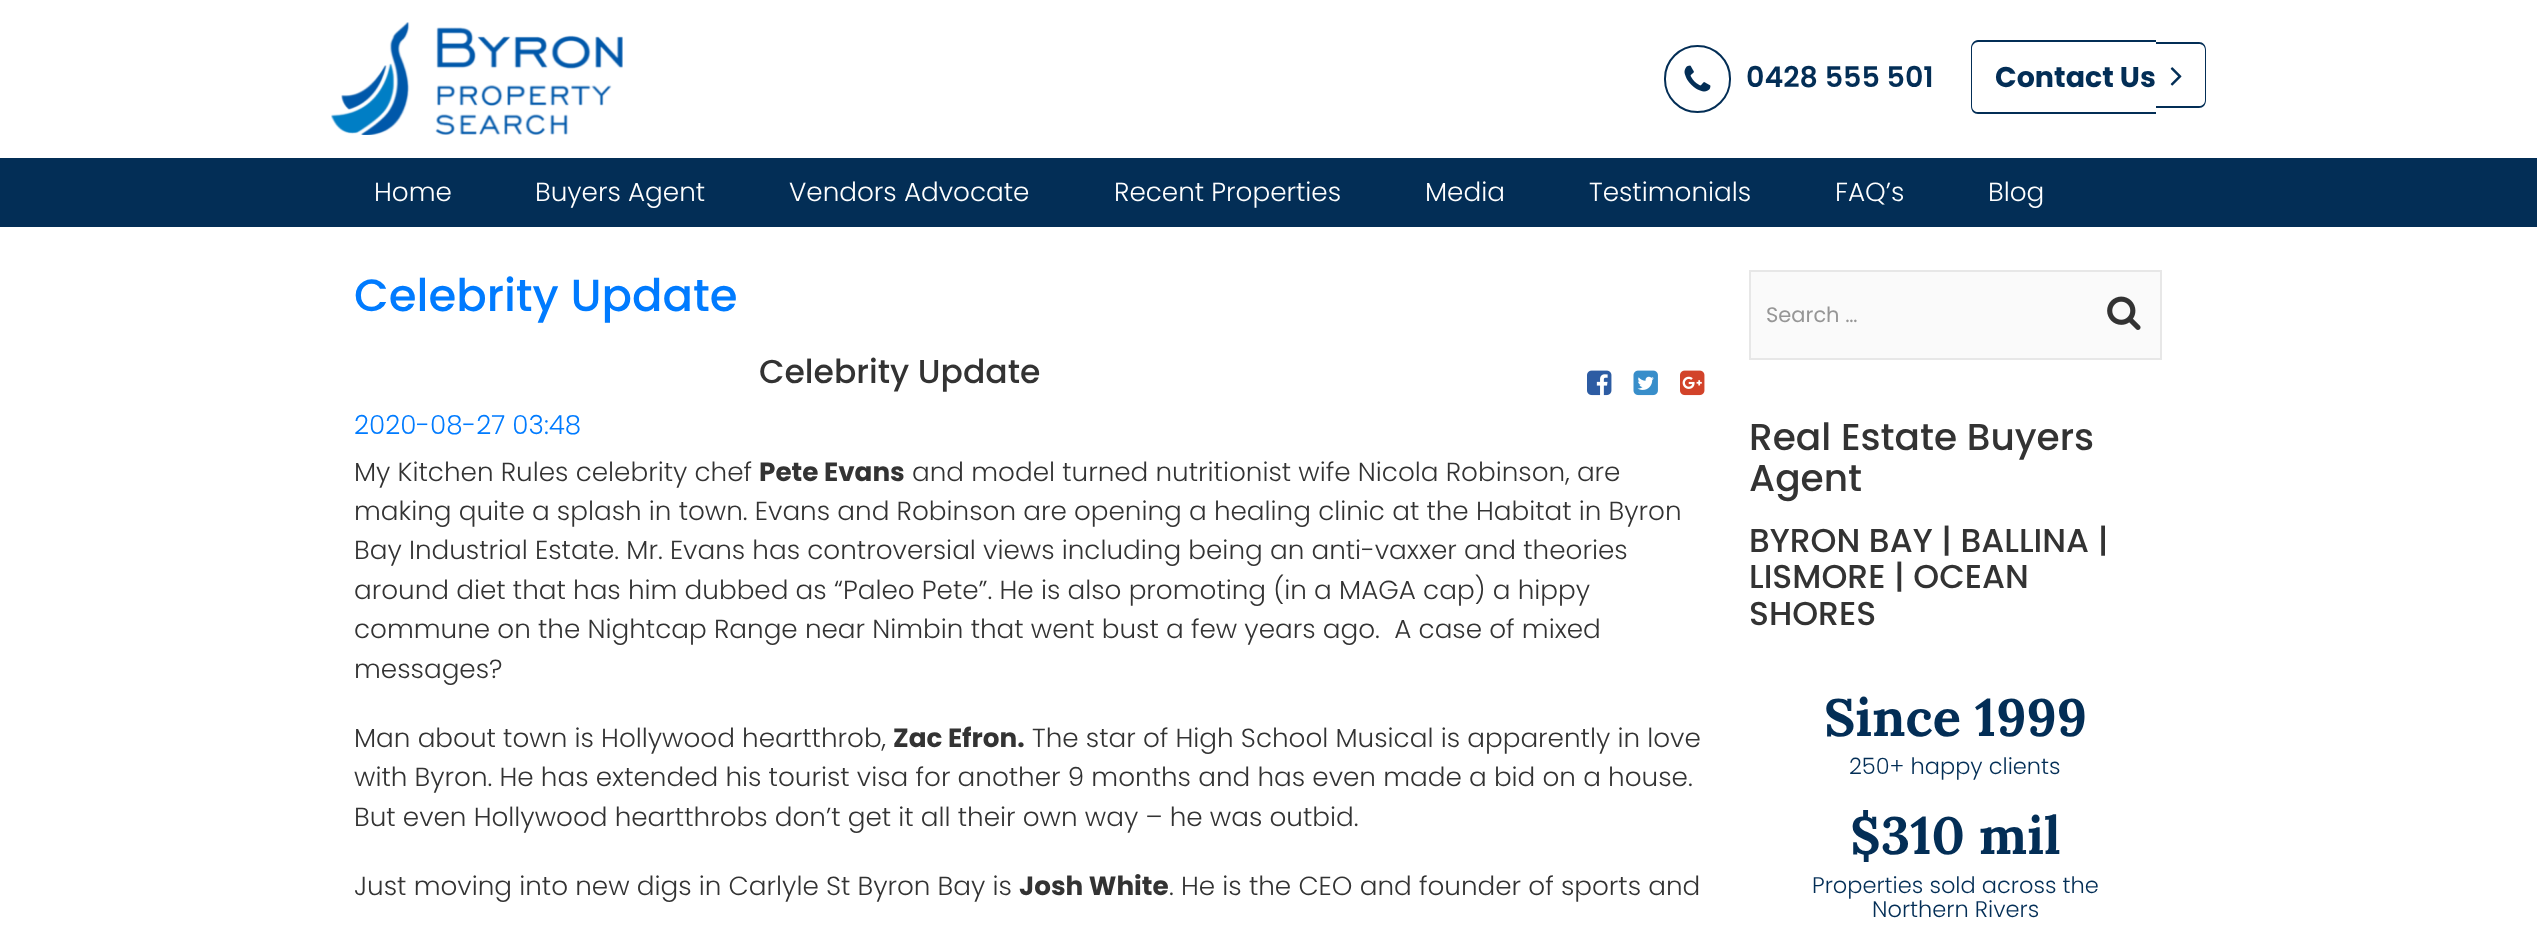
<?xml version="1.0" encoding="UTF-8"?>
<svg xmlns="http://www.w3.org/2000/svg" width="2537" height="926">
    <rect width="100%" height="100%" fill="#FFFFFF"/>
    <image x="331" y="22" width="292" height="113" href="img_01.png"/>
    <rect x="1665" y="46" width="65" height="66" rx="32.5" fill="none" stroke="#032E56" stroke-width="2"/>
    <image x="1684" y="65" width="27" height="27" href="img_02.png"/>
    <text x="1746" y="87" font-family="Poppins" font-size="28.5" font-weight="600" fill="#032E56">0428 555 501</text>
    <path d="M 1978 40 H 2156 V 114 H 1978 C 1974 114 1971 111 1971 106 V 48 C 1971 44 1974 40 1978 40 Z M 1978 42 H 2156 V 112 H 1978 C 1975 112 1972 110 1972 106 V 48 C 1972 45 1975 42 1978 42 Z" fill="#032E56" fill-rule="evenodd"/>
    <text x="1995" y="87" font-family="Poppins" font-size="28.5" font-weight="700" fill="#032E56">Contact Us</text>
    <path d="M 2156 42 H 2199 C 2203 42 2206 45 2206 50 V 100 C 2206 105 2203 108 2199 108 H 2156 Z M 2156 44 H 2199 C 2202 44 2205 46 2205 50 V 100 C 2205 104 2202 106 2199 106 H 2156 Z" fill="#032E56" fill-rule="evenodd"/>
    <image x="2170" y="67" width="12" height="19" href="img_03.png"/>
    <rect x="0" y="158" width="2537" height="69" fill="#032E56"/>
    <text x="374" y="201" font-family="Poppins" font-size="26.25" font-weight="300" fill="#FFFFFF">Home</text>
    <text x="535" y="201" font-family="Poppins" font-size="26.25" font-weight="300" fill="#FFFFFF">Buyers Agent</text>
    <text x="789" y="201" font-family="Poppins" font-size="26.25" font-weight="300" fill="#FFFFFF">Vendors Advocate</text>
    <text x="1114" y="201" font-family="Poppins" font-size="26.25" font-weight="300" fill="#FFFFFF">Recent Properties</text>
    <text x="1425" y="201" font-family="Poppins" font-size="26.25" font-weight="300" fill="#FFFFFF">Media</text>
    <text x="1589" y="201" font-family="Poppins" font-size="26.25" font-weight="300" fill="#FFFFFF">Testimonials</text>
    <text x="1835" y="201" font-family="Poppins" font-size="26.25" font-weight="300" fill="#FFFFFF">FAQ’s</text>
    <text x="1988" y="201" font-family="Poppins" font-size="26.25" font-weight="300" fill="#FFFFFF">Blog</text>
    <text x="354" y="311" font-family="Poppins" font-size="45" font-weight="500" fill="#007BFF">Celebrity Update</text>
    <text x="759" y="383" font-family="Poppins" font-size="33" font-weight="500" fill="#333333">Celebrity Update</text>
    <image x="1587" y="370" width="25" height="26" href="img_04.png"/>
    <image x="1633" y="370" width="25" height="26" href="img_05.png"/>
    <image x="1680" y="370" width="25" height="26" href="img_06.png"/>
    <text x="354" y="434" font-family="Poppins" font-size="26.25" font-weight="300" fill="#007BFF">2020-08-27 03:48</text>
    <text x="354" y="481" font-family="Poppins" font-size="26.25" font-weight="300" fill="#333333">My Kitchen Rules celebrity chef</text>
    <text x="759" y="481" font-family="Poppins" font-size="26.25" font-weight="700" fill="#333333">Pete Evans</text>
    <text x="912" y="481" font-family="Poppins" font-size="26.25" font-weight="300" fill="#333333">and model turned nutritionist wife Nicola Robinson, are</text>
    <text font-family="Poppins" font-size="26.25" font-weight="300" fill="#333333" xml:space="preserve"><tspan x="354" y="520">making quite a splash in town. Evans and Robinson are opening a healing clinic at the Habitat in Byron</tspan><tspan x="354" y="559">Bay Industrial Estate. Mr. Evans has controversial views including being an anti-vaxxer and theories</tspan><tspan x="354" y="599">around diet that has him dubbed as “Paleo Pete”. He is also promoting (in a MAGA cap) a hippy</tspan><tspan x="354" y="638">commune on the Nightcap Range near Nimbin that went bust a few years ago.  A case of mixed</tspan><tspan x="354" y="678">messages?</tspan></text>
    <text x="354" y="747" font-family="Poppins" font-size="26.25" font-weight="300" fill="#333333">Man about town is Hollywood heartthrob,</text>
    <text x="893" y="747" font-family="Poppins" font-size="26.25" font-weight="700" fill="#333333">Zac Efron.</text>
    <text x="1032" y="747" font-family="Poppins" font-size="26.25" font-weight="300" fill="#333333">The star of High School Musical is apparently in love</text>
    <text font-family="Poppins" font-size="26.25" font-weight="300" fill="#333333">
        <tspan x="354" y="786">with Byron. He has extended his tourist visa for another 9 months and has even made a bid on a house.</tspan>
        <tspan x="354" y="826">But even Hollywood heartthrobs don’t get it all their own way – he was outbid.</tspan>
    </text>
    <text x="354" y="895" font-family="Poppins" font-size="26.25" font-weight="300" fill="#333333">Just moving into new digs in Carlyle St Byron Bay is</text>
    <text x="1019" y="895" font-family="Poppins" font-size="26.25" font-weight="700" fill="#333333">Josh White</text>
    <text x="1169" y="895" font-family="Poppins" font-size="26.25" font-weight="300" fill="#333333">. He is the CEO and founder of sports and</text>
    <rect x="1750" y="271" width="411" height="88" fill="#FAFAFA" stroke="#E7E7E7" stroke-width="2"/>
    <text x="1766" y="322" font-family="Poppins" font-size="21" fill="#969696">Search …</text>
    <image x="2107" y="296" width="34" height="34" href="img_07.png"/>
    <text font-family="Poppins" font-size="37.5" font-weight="500" fill="#333333">
        <tspan x="1749" y="450">Real Estate Buyers</tspan>
        <tspan x="1749" y="491">Agent</tspan>
    </text>
    <text font-family="Poppins" font-size="33" font-weight="500" fill="#333333">
        <tspan x="1749" y="552">BYRON BAY | BALLINA |</tspan>
        <tspan x="1749" y="588">LISMORE | OCEAN</tspan>
        <tspan x="1749" y="625">SHORES</tspan>
    </text>
    <text x="1824" y="736" font-family="Lora" font-size="52.5" font-weight="700" fill="#032E56">Since 1999</text>
    <text x="1849" y="774" font-family="Poppins" font-size="22.5" font-weight="300" fill="#032E56">250+ happy clients</text>
    <text x="1850" y="854" font-family="Lora" font-size="52.5" font-weight="700" fill="#032E56">$310 mil</text>
    <text x="1812" y="893" font-family="Poppins" font-size="22.5" font-weight="300" fill="#032E56">Properties sold across the</text>
    <text x="1872" y="917" font-family="Poppins" font-size="22.5" font-weight="300" fill="#032E56">Northern Rivers</text>
</svg>
